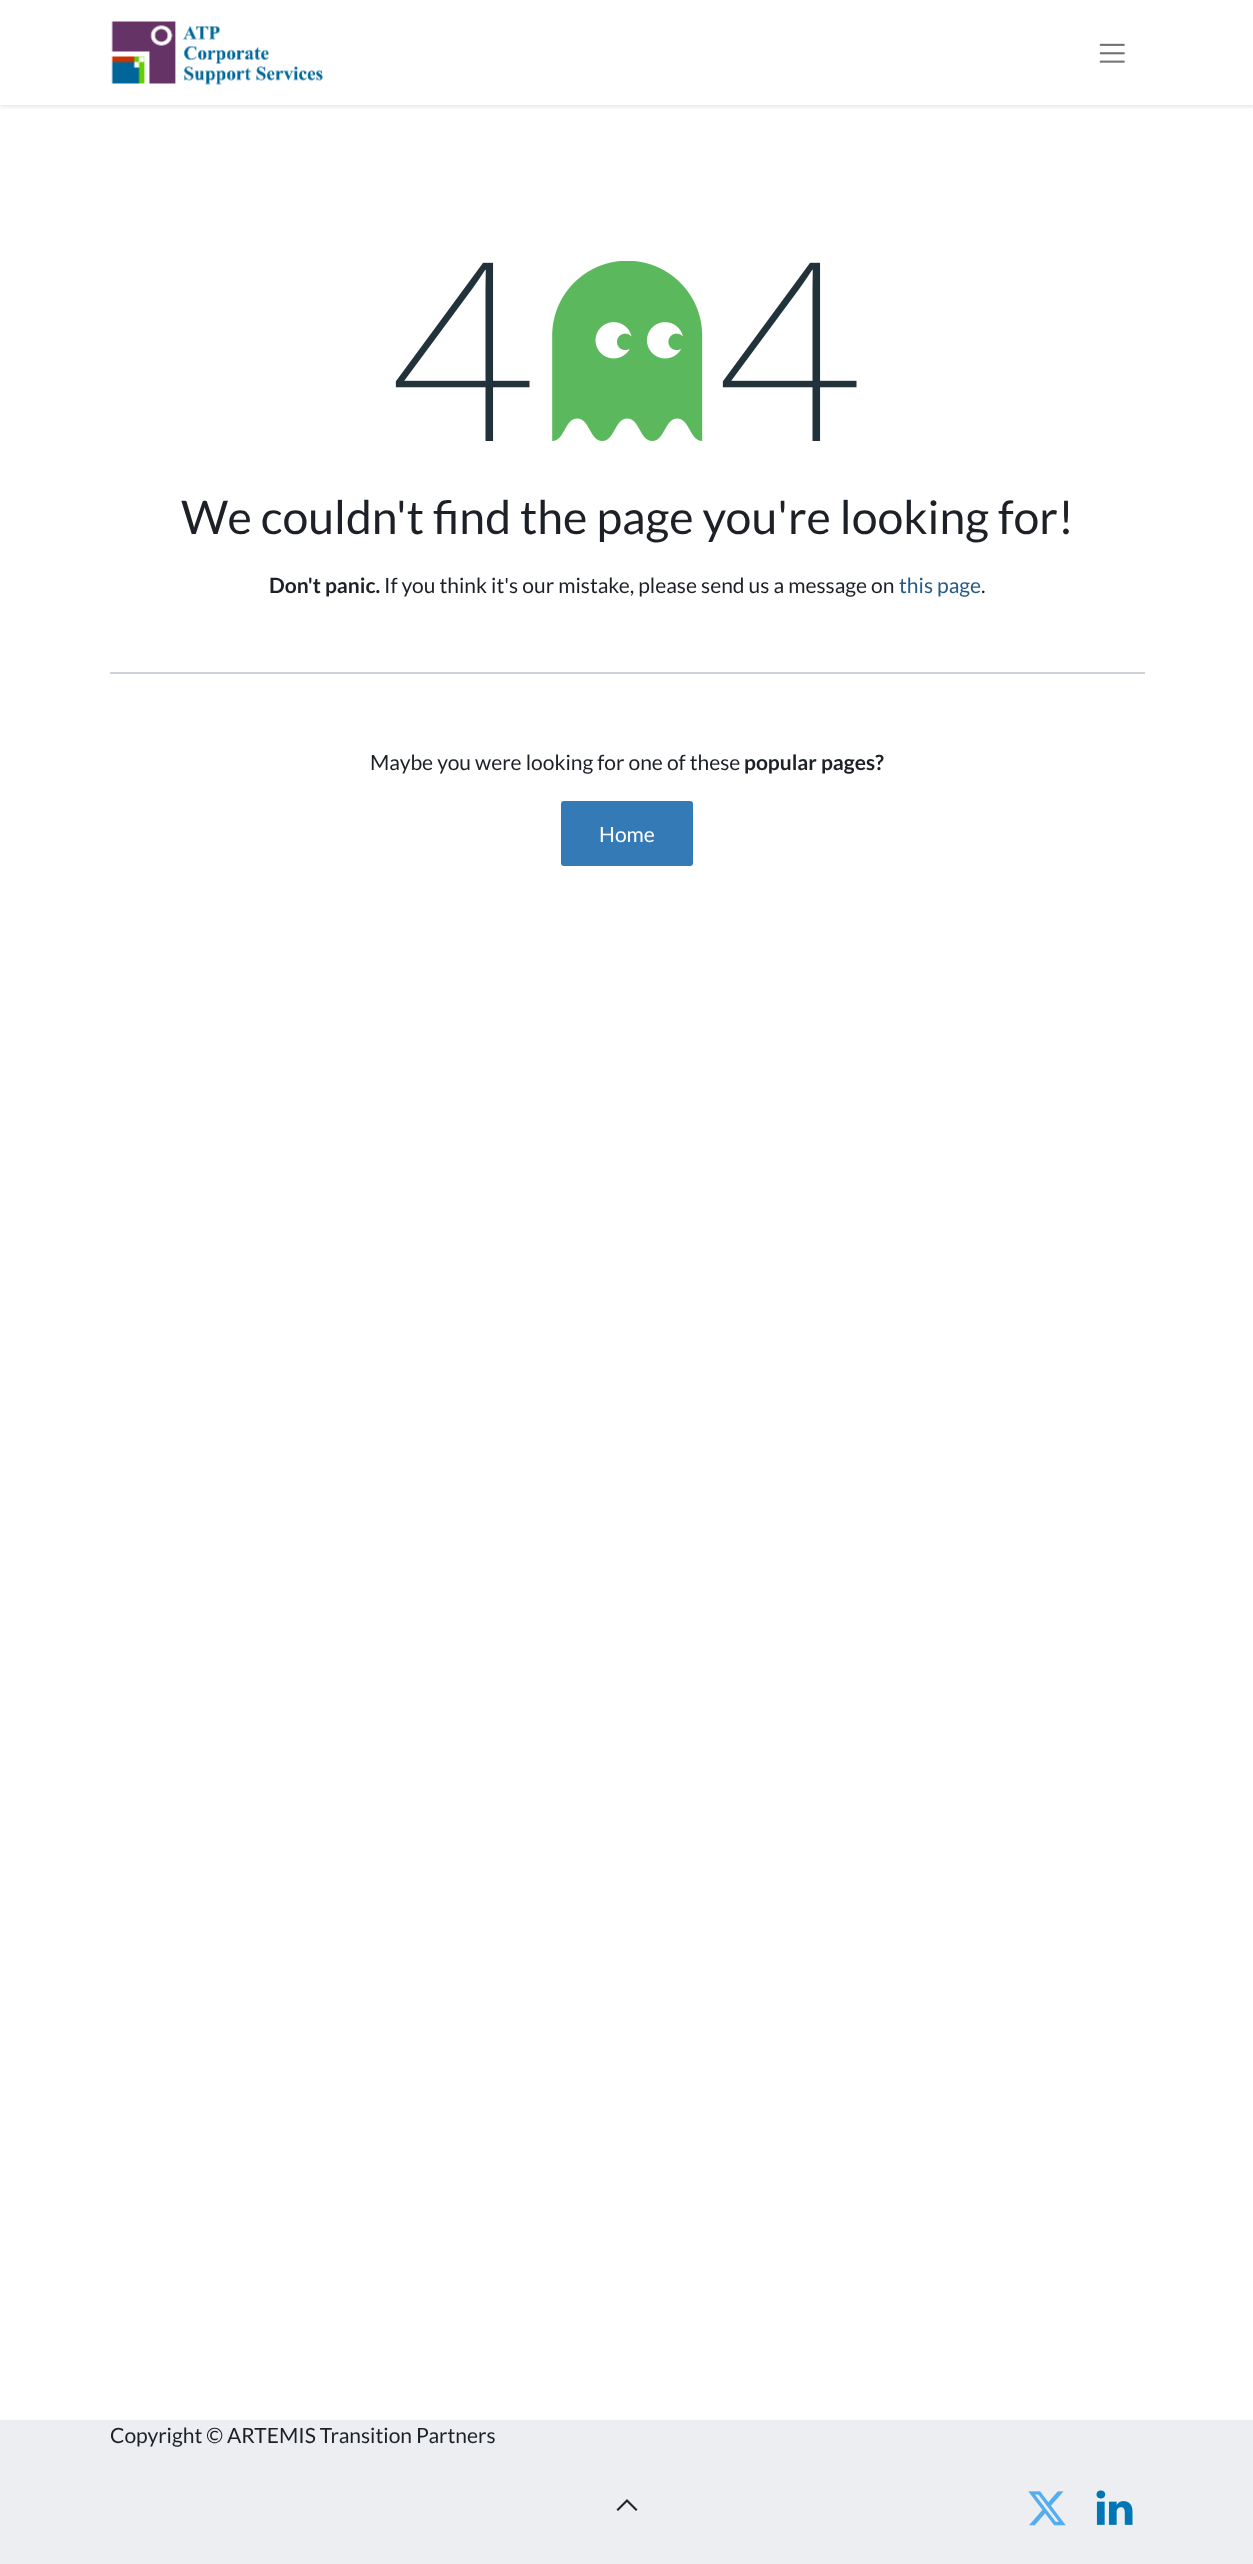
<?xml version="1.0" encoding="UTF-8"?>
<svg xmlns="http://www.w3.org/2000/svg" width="1253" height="2564">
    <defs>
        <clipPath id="clip1"><rect x="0" y="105" width="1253" height="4"/></clipPath>
        <filter id="blur1" x="-50%" y="-200%" width="200%" height="500%"><feGaussianBlur stdDeviation="2"/></filter>
    </defs>
    <rect width="100%" height="100%" fill="#FFFFFF"/>
    <g clip-path="url(#clip1)">
        <rect x="0" y="2" width="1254" height="105" fill="#000000" fill-opacity="0.1" filter="url(#blur1)"/>
    </g>
    <image x="111" y="21" width="213" height="64" href="img_01.png"/>
    <image x="1099" y="43" width="26" height="20" href="img_02.png"/>
    <image x="395" y="261" width="462" height="180" href="img_03.png"/>
    <text x="181" y="534" font-family="Lato" font-size="46.4" fill="#1D2127">We couldn't find the page you're looking for!</text>
    <text x="269" y="593" font-family="Lato" font-size="21" font-weight="700" fill="#1D2127">Don't panic.</text>
    <text x="384" y="593" font-family="Lato" font-size="21" fill="#1D2127">If you think it's our mistake, please send us a message on</text>
    <text x="899" y="593" font-family="Lato" font-size="21" fill="#265A87">this page</text>
    <text x="981" y="593" font-family="Lato" font-size="21" fill="#1D2127">.</text>
    <rect x="110" y="672" width="1035" height="2" fill="#CED4DA"/>
    <text x="370" y="770" font-family="Lato" font-size="21" fill="#1D2127">Maybe you were looking for one of these</text>
    <text x="744" y="770" font-family="Lato" font-size="21" font-weight="700" fill="#1D2127">popular pages?</text>
    <rect x="562" y="802" width="130" height="63" rx="2" fill="#337AB7" stroke="#337AB7" stroke-width="2"/>
    <text x="599" y="842" font-family="Lato" font-size="21" fill="#FFFFFF">Home</text>
    <rect x="0" y="2420" width="1253" height="144" fill="#ECEEF1"/>
    <text x="110" y="2443" font-family="Lato" font-size="21" fill="#1D2127">Copyright © ARTEMIS Transition Partners</text>
    <image x="1028" y="2491" width="38" height="35" href="img_04.png"/>
    <image x="1096" y="2490" width="37" height="35" href="img_05.png"/>
    <path d="M 627 2499 L 637.5 2509.5 L 636 2511 L 627 2502 L 618 2511 L 616.5 2509.5 Z" fill="#212529"/>
</svg>
